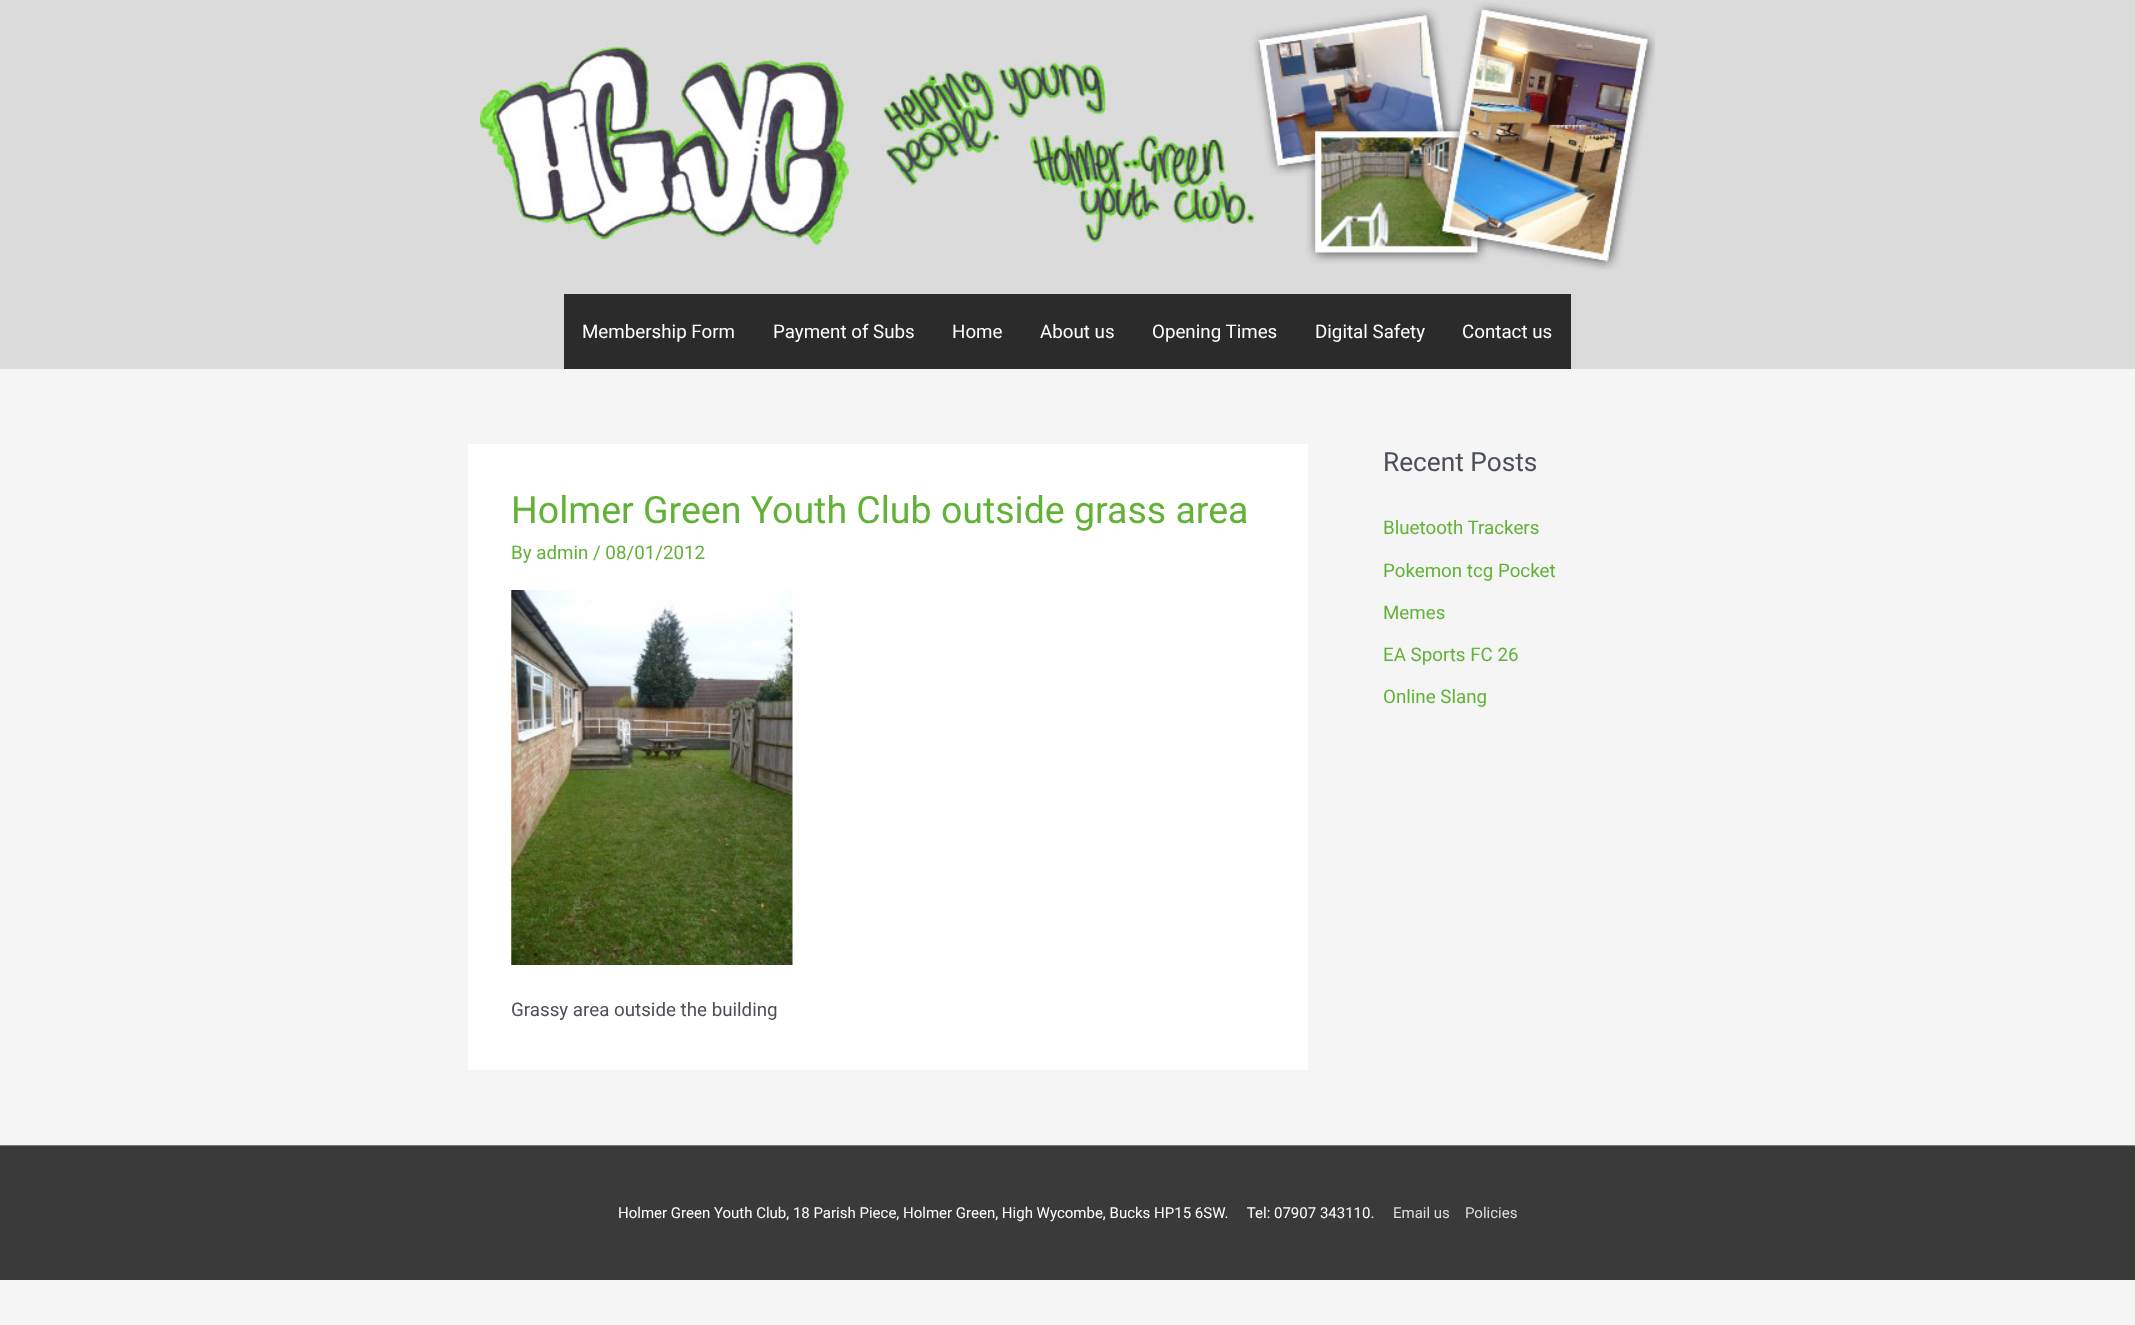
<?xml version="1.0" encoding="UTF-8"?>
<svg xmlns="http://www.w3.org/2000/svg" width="2135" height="1325">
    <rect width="100%" height="100%" fill="#F5F5F5"/>
    <rect x="0" y="0" width="2135" height="369" fill="#DBDBDB"/>
    <image x="480" y="2" width="1175" height="268" href="img_01.png"/>
    <rect x="564" y="294" width="1007" height="75" fill="#2B2B2B"/>
    <text x="582" y="338" font-family="Roboto" font-size="18.75" fill="#FFFFFF">Membership Form</text>
    <text x="773" y="338" font-family="Roboto" font-size="18.75" fill="#FFFFFF">Payment of Subs</text>
    <text x="952" y="338" font-family="Roboto" font-size="18.75" fill="#FFFFFF">Home</text>
    <text x="1040" y="338" font-family="Roboto" font-size="18.75" fill="#FFFFFF">About us</text>
    <text x="1152" y="338" font-family="Roboto" font-size="18.75" fill="#FFFFFF">Opening Times</text>
    <text x="1315" y="338" font-family="Roboto" font-size="18.75" fill="#FFFFFF">Digital Safety</text>
    <text x="1462" y="338" font-family="Roboto" font-size="18.75" fill="#FFFFFF">Contact us</text>
    <rect x="468" y="444" width="840" height="626" fill="#FFFFFF"/>
    <text x="511" y="523" font-family="Roboto" font-size="37.5" fill="#62B237">Holmer Green Youth Club outside grass area</text>
    <text x="511" y="559" font-family="Roboto" font-size="18.75" fill="#62B237">By admin / 08/01/2012</text>
    <image x="511" y="590" width="282" height="375" href="img_02.png"/>
    <text x="511" y="1016" font-family="Roboto" font-size="18.75" fill="#4B4F58">Grassy area outside the building</text>
    <text x="1383" y="471" font-family="Roboto" font-size="26.25" fill="#4B4F58">Recent Posts</text>
    <text x="1383" y="534" font-family="Roboto" font-size="18.75" fill="#62B237">Bluetooth Trackers</text>
    <text x="1383" y="577" font-family="Roboto" font-size="18.75" fill="#62B237">Pokemon tcg Pocket</text>
    <text x="1383" y="619" font-family="Roboto" font-size="18.75" fill="#62B237">Memes</text>
    <text x="1383" y="661" font-family="Roboto" font-size="18.75" fill="#62B237">EA Sports FC 26</text>
    <text x="1383" y="703" font-family="Roboto" font-size="18.75" fill="#62B237">Online Slang</text>
    <rect x="0" y="1145" width="2135" height="1" fill="#7A7A7A"/>
    <rect x="0" y="1146" width="2135" height="134" fill="#3A3A3A"/>
    <text x="618" y="1218" font-family="Roboto" font-size="15" fill="#FFFFFF" xml:space="preserve">Holmer Green Youth Club, 18 Parish Piece, Holmer Green, High Wycombe, Bucks HP15 6SW.     Tel: 07907 343110.</text>
    <text x="1393" y="1218" font-family="Roboto" font-size="15" fill="#DDDDDD">Email us</text>
    <text x="1465" y="1218" font-family="Roboto" font-size="15" fill="#DDDDDD">Policies</text>
</svg>
